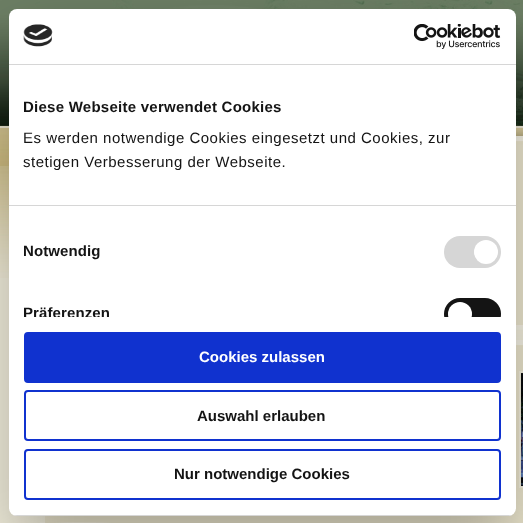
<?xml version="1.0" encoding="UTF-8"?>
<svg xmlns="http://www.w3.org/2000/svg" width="523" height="523">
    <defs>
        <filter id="blur1" x="-50%" y="-200%" width="200%" height="500%"><feGaussianBlur stdDeviation="34"/></filter>
        <clipPath id="clip1"><rect x="9" y="65" width="507" height="252"/></clipPath>
        <clipPath id="clip2"><rect x="9" y="9" width="507" height="507" rx="8"/></clipPath>
    </defs>
    <rect width="100%" height="100%" fill="#F4F0DE"/>
    <image x="0" y="0" width="35" height="278" href="img_01.png"/>
    <image x="35" y="0" width="488" height="136" href="img_02.png"/>
    <image x="516" y="136" width="7" height="215" href="img_03.png"/>
    <rect x="45" y="351" width="478" height="171" fill="#EDE7CE"/>
    <rect x="520" y="372" width="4" height="115" fill="none" stroke="#F4F0DE" stroke-width="2"/>
    <image x="521" y="373" width="2" height="113" href="img_04.png"/>
    <image x="40" y="522" width="483" height="1" href="img_05.png"/>
    <rect x="9" y="41" width="507" height="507" rx="8" fill="#000000" fill-opacity="0.3" filter="url(#blur1)"/>
    <rect x="9" y="9" width="507" height="507" rx="8" fill="#FFFFFF"/>
    <rect x="9" y="64" width="507" height="1" fill="#D6D6D6"/>
    <image x="23" y="24" width="30" height="23" href="img_06.png"/>
    <image x="414" y="24" width="87" height="25" href="img_07.png"/>
    <rect x="9" y="205" width="507" height="1" fill="#D6D6D6"/>
    <text x="23" y="112" font-family="Liberation Sans" font-size="15" font-weight="700" letter-spacing="0.25" fill="#141414">Diese Webseite verwendet Cookies</text>
    <text font-family="Liberation Sans" font-size="15" letter-spacing="0.5" fill="#141414">
        <tspan x="23" y="143">Es werden notwendige Cookies eingesetzt und Cookies, zur</tspan>
        <tspan x="23" y="167">stetigen Verbesserung der Webseite.</tspan>
    </text>
    <text x="23" y="256" font-family="Liberation Sans" font-size="15" font-weight="700" letter-spacing="0.1" fill="#141414">Notwendig</text>
    <rect x="444" y="236" width="57" height="32" rx="16" fill="#D6D6D6"/>
    <circle cx="486" cy="252" r="12" fill="#FFFFFF"/>
    <g clip-path="url(#clip1)">
        <text x="23" y="318" font-family="Liberation Sans" font-size="15" font-weight="700" letter-spacing="0.1" fill="#141414">Präferenzen</text>
        <rect x="444" y="298" width="57" height="32" rx="16" fill="#141414"/>
        <circle cx="460" cy="314" r="12" fill="#FFFFFF"/>
    </g>
    <g clip-path="url(#clip2)">
        <rect x="9" y="515" width="507" height="1" fill="#D6D6D6"/>
    </g>
    <rect x="25" y="333" width="475" height="49" rx="3" fill="#1032CF" stroke="#1032CF" stroke-width="2"/>
    <text x="199" y="362" font-family="Liberation Sans" font-size="15" font-weight="700" fill="#FFFFFF">Cookies zulassen</text>
    <rect x="25" y="391" width="475" height="49" rx="3" fill="none" stroke="#1032CF" stroke-width="2"/>
    <text x="197" y="421" font-family="Liberation Sans" font-size="15" font-weight="700" fill="#141414">Auswahl erlauben</text>
    <rect x="25" y="450" width="475" height="49" rx="3" fill="none" stroke="#1032CF" stroke-width="2"/>
    <text x="174" y="479" font-family="Liberation Sans" font-size="15" font-weight="700" fill="#141414">Nur notwendige Cookies</text>
</svg>
